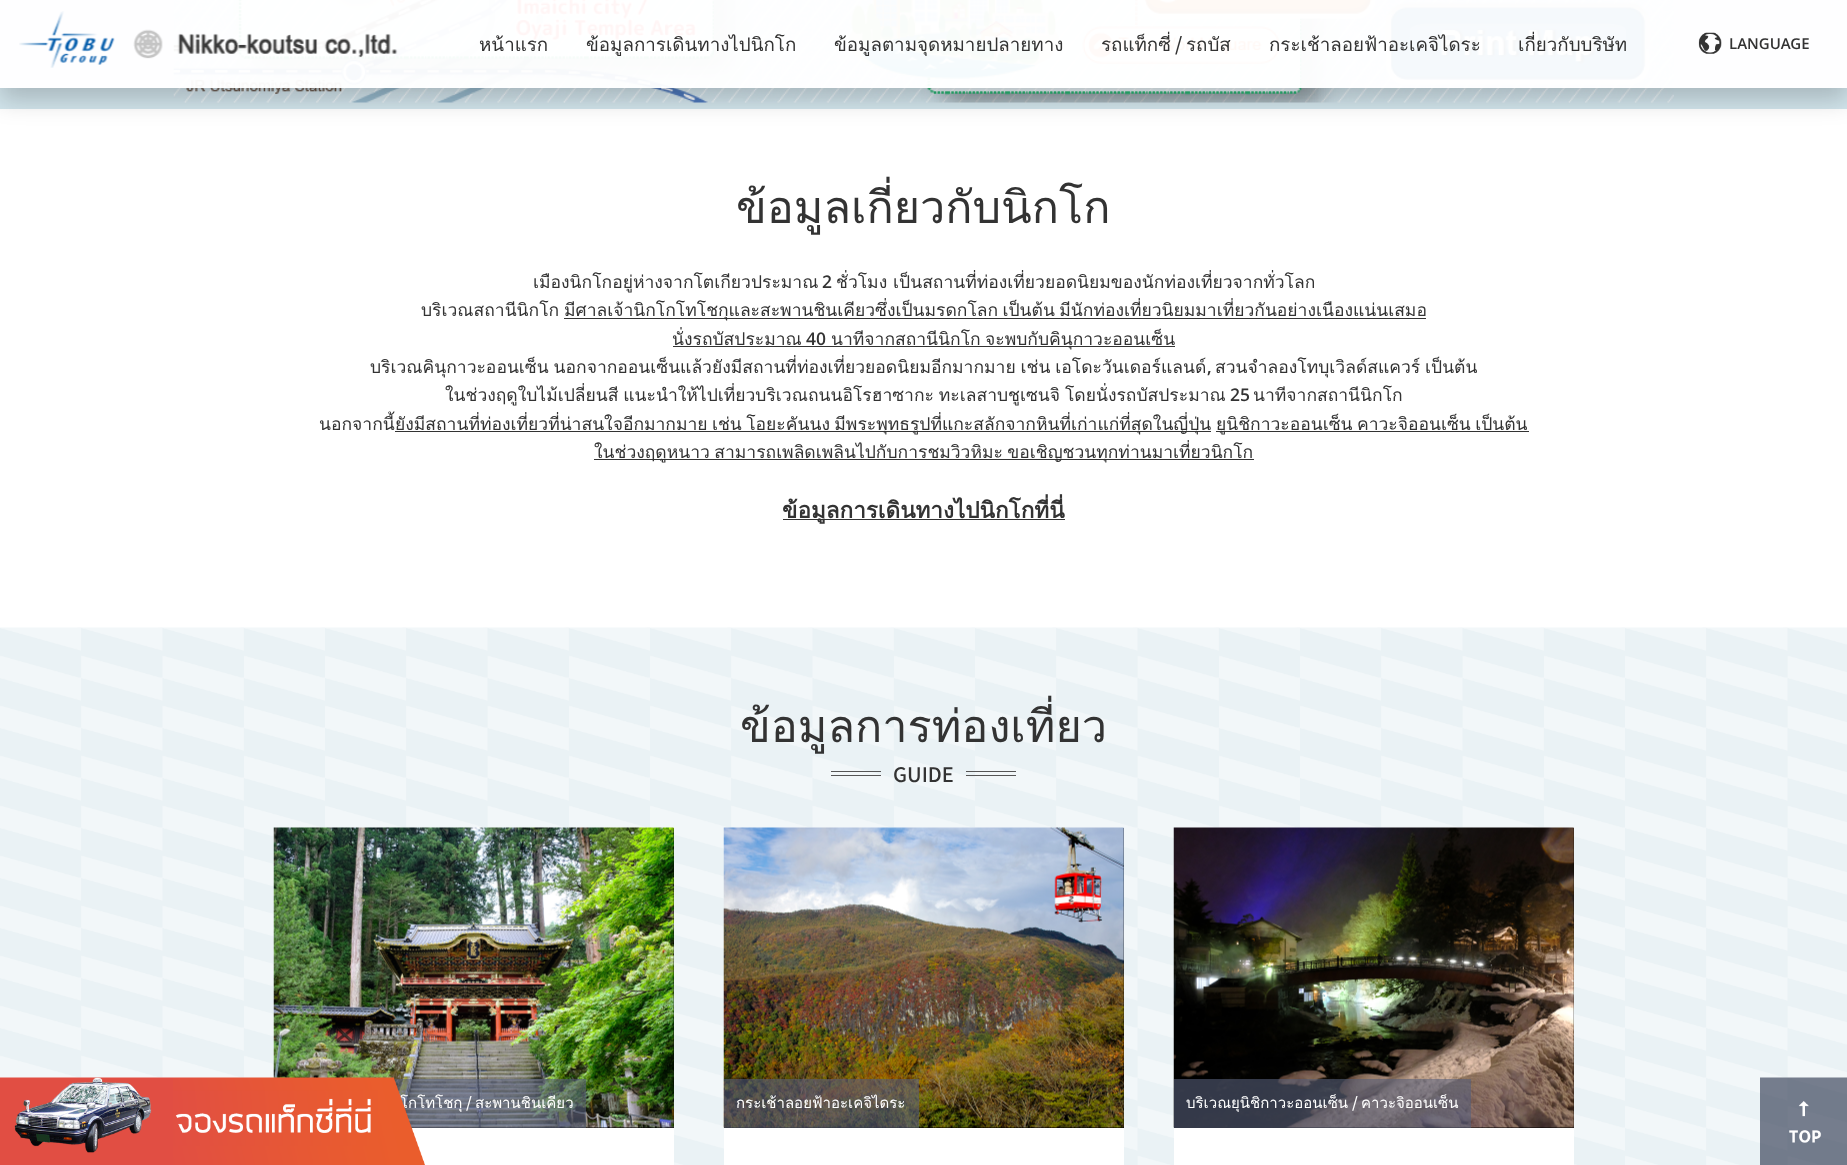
<?xml version="1.0" encoding="UTF-8"?>
<svg xmlns="http://www.w3.org/2000/svg" width="1847" height="1165">
    <defs>
        <clipPath id="clip1"><path d="M 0 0 H 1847 V 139 H 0 Z M 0 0 H 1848 V 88 H 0 Z" clip-rule="evenodd"/></clipPath>
        <filter id="blur1" x="-50%" y="-200%" width="200%" height="500%"><feGaussianBlur stdDeviation="12.5"/></filter>
    </defs>
    <rect width="100%" height="100%" fill="#FFFFFF"/>
    <rect x="0" y="0" width="1847" height="109" fill="#D2E5EC"/>
    <image x="173" y="0" width="1501" height="103" href="img_01.png"/>
    <g clip-path="url(#clip1)">
        <rect x="0" y="13" width="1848" height="87" fill="#000000" fill-opacity="0.2" filter="url(#blur1)"/>
    </g>
    <rect x="0" y="0" width="1847" height="88" fill="#FFFFFF" fill-opacity="0.96"/>
    <image x="19" y="11" width="96" height="57" href="img_02.png"/>
    <image x="133" y="29" width="265" height="30" href="img_03.png"/>
    <text x="479" y="51" font-family="Loma" font-size="18.75" fill="#333333">หน้าแรก</text>
    <text x="586" y="51" font-family="Loma" font-size="18.75" fill="#333333">ข้อมูลการเดินทางไปนิกโก</text>
    <text x="834" y="51" font-family="Loma" font-size="18.75" fill="#333333">ข้อมูลตามจุดหมายปลายทาง</text>
    <text x="1101" y="51" font-family="Loma" font-size="18.75" fill="#333333">รถแท็กซี่</text>
    <text x="1175" y="51" font-family="Noto Sans CJK JP" font-size="18.75" font-weight="500" fill="#333333">/</text>
    <text x="1186" y="51" font-family="Loma" font-size="18.75" fill="#333333">รถบัส</text>
    <text x="1269" y="51" font-family="Loma" font-size="18.75" fill="#333333">กระเช้าลอยฟ้าอะเคจิไดระ</text>
    <text x="1518" y="51" font-family="Loma" font-size="18.75" fill="#333333">เกี่ยวกับบริษัท</text>
    <image x="1698" y="32" width="24" height="22" href="img_04.png"/>
    <text x="1729" y="49" font-family="Open Sans" font-size="15" font-weight="600" fill="#333333">LANGUAGE</text>
    <text x="736" y="223" font-family="Loma" font-size="45" fill="#333333">ข้อมูลเกี่ยวกับนิกโก</text>
    <text x="533" y="288" font-family="Loma" font-size="17.5" fill="#333333">เมืองนิกโกอยู่ห่างจากโตเกียวประมาณ</text>
    <text x="822" y="288" font-family="Open Sans" font-size="17.5" font-weight="600" fill="#333333">2</text>
    <text x="836" y="288" font-family="Loma" font-size="17.5" fill="#333333">ชั่วโมง เป็นสถานที่ท่องเที่ยวยอดนิยมของนักท่องเที่ยวจากทั่วโลก</text>
    <text x="421" y="316" font-family="Loma" font-size="17.5" fill="#333333">บริเวณสถานีนิกโก</text>
    <rect x="564" y="318" width="862" height="1" fill="#333333"/>
    <text x="564" y="316" word-spacing="-1.5" font-family="Loma" font-size="17.5" fill="#333333">มีศาลเจ้านิกโกโทโชกุและสะพานชินเคียวซึ่งเป็นมรดกโลก เป็นต้น มีนักท่องเที่ยวนิยมมาเที่ยวกันอย่างเนืองแน่นเสมอ</text>
    <text x="672" y="345" font-family="Loma" font-size="17.5" fill="#333333">นั่งรถบัสประมาณ</text>
    <text x="806" y="345" font-family="Open Sans" font-size="17.5" font-weight="600" fill="#333333">40</text>
    <rect x="673" y="346" width="502" height="1" fill="#333333"/>
    <text x="831" y="345" font-family="Loma" font-size="17.5" fill="#333333">นาทีจากสถานีนิกโก</text>
    <text x="985" y="345" font-family="Loma" font-size="17.5" fill="#333333">จะพบกับคินุกาวะออนเซ็น</text>
    <text x="370" y="373" word-spacing="-1" font-family="Loma" font-size="17.5" fill="#333333">บริเวณคินุกาวะออนเซ็น นอกจากออนเซ็นแล้วยังมีสถานที่ท่องเที่ยวยอดนิยมอีกมากมาย เช่น เอโดะวันเดอร์แลนด์</text>
    <text x="1207" y="373" font-family="Open Sans" font-size="17.5" font-weight="600" fill="#333333">,</text>
    <text x="1215" y="373" word-spacing="-1" font-family="Loma" font-size="17.5" fill="#333333">สวนจำลองโทบุเวิลด์สแควร์ เป็นต้น</text>
    <text x="445" y="401" word-spacing="-1" font-family="Loma" font-size="17.5" fill="#333333">ในช่วงฤดูใบไม้เปลี่ยนสี แนะนำให้ไปเที่ยวบริเวณถนนอิโรฮาซากะ ทะเลสาบชูเซนจิ โดยนั่งรถบัสประมาณ</text>
    <text x="1230" y="401" font-family="Open Sans" font-size="17.5" font-weight="600" fill="#333333">25</text>
    <text x="1253" y="401" font-family="Loma" font-size="17.5" fill="#333333">นาทีจากสถานีนิกโก</text>
    <text x="319" y="430" font-family="Loma" font-size="17.5" fill="#333333">นอกจากนี้</text>
    <rect x="395" y="431" width="816" height="1" fill="#333333"/>
    <text x="395" y="430" word-spacing="-1.5" font-family="Loma" font-size="17.5" fill="#333333">ยังมีสถานที่ท่องเที่ยวที่น่าสนใจอีกมากมาย เช่น โอยะคันนง มีพระพุทธรูปที่แกะสลักจากหินที่เก่าแก่ที่สุดในญี่ปุ่น</text>
    <rect x="1216" y="431" width="313" height="1" fill="#333333"/>
    <text x="1216" y="430" word-spacing="-1.5" font-family="Loma" font-size="17.5" fill="#333333">ยูนิชิกาวะออนเซ็น คาวะจิออนเซ็น เป็นต้น</text>
    <rect x="594" y="459" width="660" height="1" fill="#333333"/>
    <text x="594" y="458" word-spacing="-1.5" font-family="Loma" font-size="17.5" fill="#333333">ในช่วงฤดูหนาว สามารถเพลิดเพลินไปกับการชมวิวหิมะ ขอเชิญชวนทุกท่านมาเที่ยวนิกโก</text>
    <rect x="783" y="519" width="282" height="1" fill="#333333"/>
    <text x="782" y="518" font-family="Loma" font-size="22.5" font-weight="700" fill="#333333">ข้อมูลการเดินทางไปนิกโกที่นี่</text>
    <image x="0" y="627" width="1847" height="538" href="img_05.png"/>
    <text x="740" y="742" font-family="Loma" font-size="45" fill="#333333">ข้อมูลการท่องเที่ยว</text>
    <rect x="831" y="771" width="50" height="1" fill="#555555"/>
    <rect x="831" y="775" width="50" height="1" fill="#555555"/>
    <text x="893" y="782" font-family="Noto Sans CJK JP" font-size="20" font-weight="500" fill="#333333">GUIDE</text>
    <rect x="966" y="771" width="50" height="1" fill="#555555"/>
    <rect x="966" y="775" width="50" height="1" fill="#555555"/>
    <rect x="411" y="828" width="263" height="300" fill="#000000"/>
    <image x="273" y="827" width="401" height="301" href="img_06.png"/>
    <rect x="394" y="1079" width="192" height="49" fill="#565F79" fill-opacity="0.6"/>
    <text x="400" y="1108" font-family="Loma" font-size="15" fill="#FFFFFF">โกโทโชกุ</text>
    <text x="466" y="1108" font-family="Noto Sans CJK JP" font-size="15" font-weight="500" fill="#FFFFFF">/</text>
    <text x="475" y="1108" font-family="Loma" font-size="15" fill="#FFFFFF">สะพานชินเคียว</text>
    <rect x="411" y="1128" width="263" height="37" fill="#FFFFFF"/>
    <rect x="724" y="828" width="400" height="300" fill="#000000"/>
    <image x="723" y="827" width="401" height="301" href="img_07.png"/>
    <rect x="724" y="1079" width="195" height="49" fill="#565F79" fill-opacity="0.6"/>
    <text x="736" y="1108" font-family="Loma" font-size="15" fill="#FFFFFF">กระเช้าลอยฟ้าอะเคจิไดระ</text>
    <rect x="724" y="1128" width="400" height="37" fill="#FFFFFF"/>
    <rect x="1174" y="828" width="400" height="300" fill="#000000"/>
    <image x="1173" y="827" width="401" height="301" href="img_08.png"/>
    <rect x="1174" y="1079" width="297" height="49" fill="#565F79" fill-opacity="0.6"/>
    <text x="1186" y="1108" font-family="Loma" font-size="15" fill="#FFFFFF">บริเวณยุนิชิกาวะออนเซ็น</text>
    <text x="1352" y="1108" font-family="Noto Sans CJK JP" font-size="15" font-weight="500" fill="#FFFFFF">/</text>
    <text x="1361" y="1108" font-family="Loma" font-size="15" fill="#FFFFFF">คาวะจิออนเซ็น</text>
    <rect x="1174" y="1128" width="400" height="37" fill="#FFFFFF"/>
    <image x="0" y="1077" width="425" height="88" href="img_09.png"/>
    <image x="1760" y="1077" width="87" height="88" href="img_10.png"/>
</svg>
